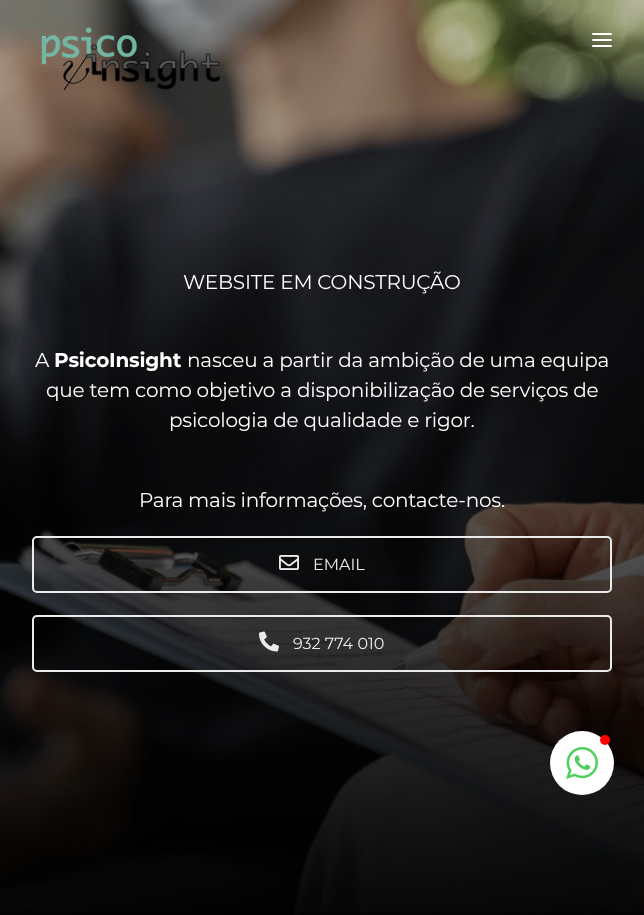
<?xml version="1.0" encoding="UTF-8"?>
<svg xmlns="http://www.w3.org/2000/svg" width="644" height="915">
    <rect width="100%" height="100%" fill="#FFFFFF"/>
    <image x="0" y="0" width="644" height="915" href="img_02.png"/>
    <image x="41" y="27" width="179" height="64" href="img_01.png"/>
    <rect x="592" y="33" width="20" height="2" rx="1" fill="#FFFFFF"/>
    <rect x="592" y="39" width="20" height="2" rx="1" fill="#FFFFFF"/>
    <rect x="592" y="45" width="20" height="2" rx="1" fill="#FFFFFF"/>
    <text x="183" y="289" font-family="Montserrat" font-size="20" letter-spacing="-0.2" fill="#FFFFFF">WEBSITE EM CONSTRUÇÃO</text>
    <text x="35" y="367" font-family="Montserrat" font-size="20" letter-spacing="-0.2" fill="#FFFFFF">A</text>
    <text x="54" y="367" font-family="Montserrat" font-size="20" font-weight="700" letter-spacing="-0.2" fill="#FFFFFF">PsicoInsight</text>
    <text x="187" y="367" font-family="Montserrat" font-size="20" letter-spacing="-0.2" fill="#FFFFFF">nasceu a partir da ambição de uma equipa</text>
    <text x="46" y="397" font-family="Montserrat" font-size="20" letter-spacing="-0.2" fill="#FFFFFF">que tem como objetivo a disponibilização de serviços de</text>
    <text x="169" y="427" font-family="Montserrat" font-size="20" letter-spacing="-0.2" fill="#FFFFFF">psicologia de qualidade e rigor.</text>
    <text x="139" y="507" font-family="Montserrat" font-size="20" letter-spacing="-0.2" fill="#FFFFFF">Para mais informações, contacte-nos.</text>
    <rect x="33" y="537" width="578" height="55" rx="4" fill="none" stroke="#EBEBEB" stroke-width="2"/>
    <image x="279" y="555" width="20" height="15" href="img_03.png"/>
    <text x="313" y="570" font-family="Montserrat" font-size="16" fill="#EBEBEB">EMAIL</text>
    <rect x="33" y="616" width="578" height="55" rx="4" fill="none" stroke="#EBEBEB" stroke-width="2"/>
    <image x="259" y="631" width="20" height="21" href="img_04.png"/>
    <text x="293" y="649" font-family="Montserrat" font-size="16" fill="#EBEBEB">932 774 010</text>
    <circle cx="582" cy="763" r="32" fill="#FFFFFF"/>
    <circle cx="605" cy="740" r="5" fill="#FF0000"/>
    <image x="566" y="747" width="32" height="32" href="img_05.png"/>
</svg>
